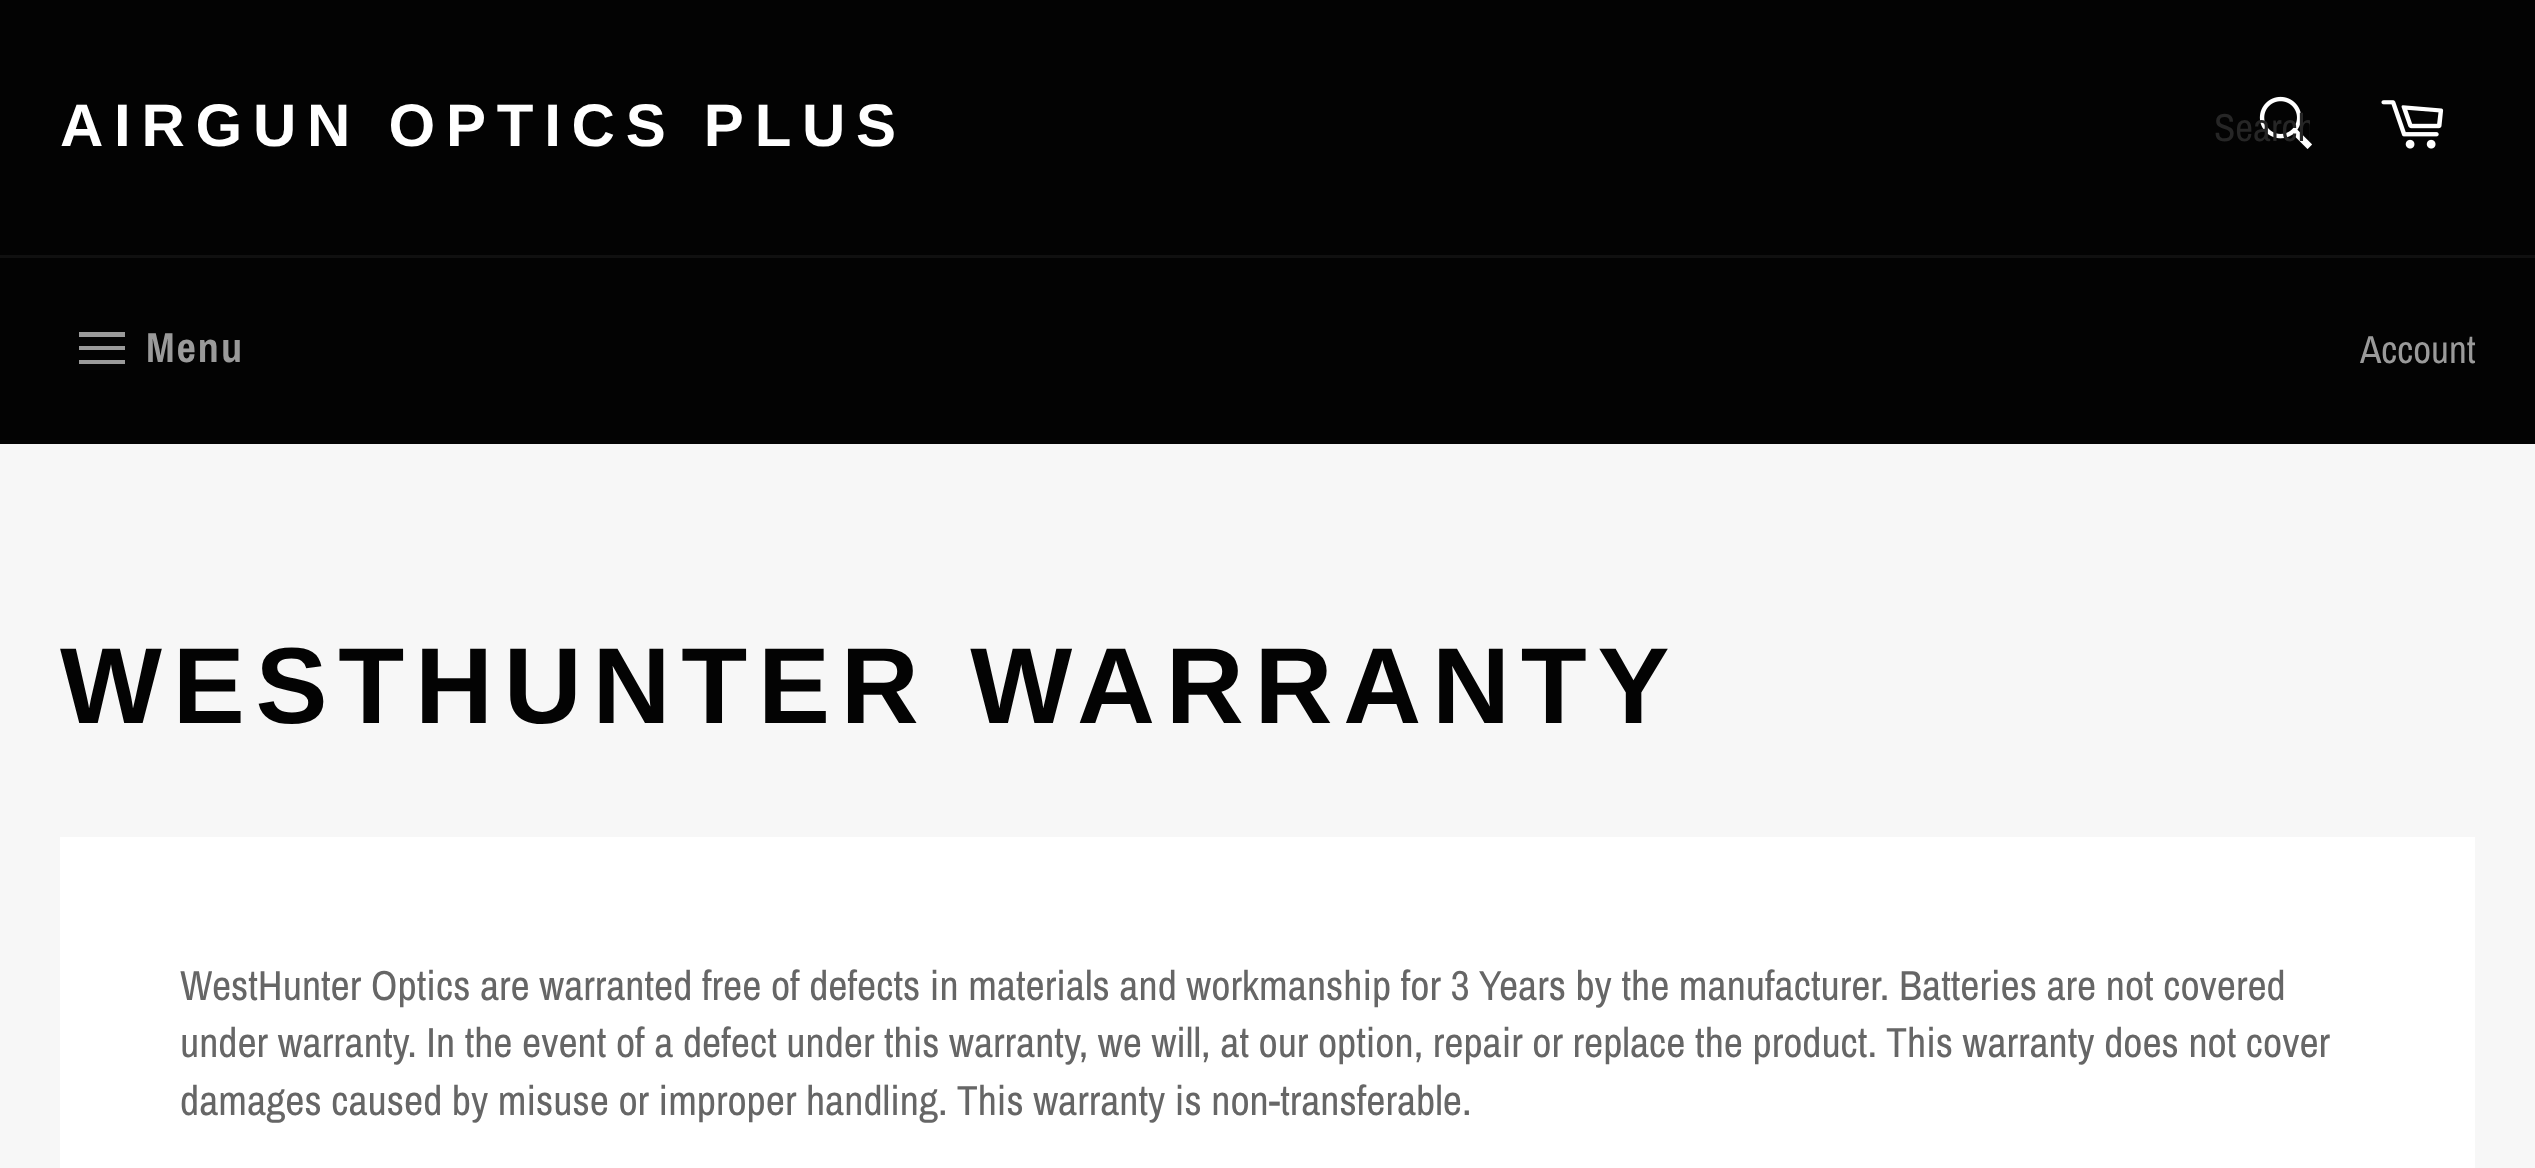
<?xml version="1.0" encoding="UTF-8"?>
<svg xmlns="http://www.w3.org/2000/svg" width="2535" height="1168">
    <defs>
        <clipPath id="clip1"><rect x="2214" y="102" width="96" height="51"/></clipPath>
    </defs>
    <rect width="100%" height="100%" fill="#F7F7F7"/>
    <rect x="0" y="0" width="2535" height="255" fill="#030303"/>
    <text x="60" y="146" font-family="Arimo" font-size="60" font-weight="700" letter-spacing="10.75" fill="#FFFFFF">AIRGUN OPTICS PLUS</text>
    <image x="2259" y="96" width="53" height="53" href="img_01.png"/>
    <g clip-path="url(#clip1)">
        <text x="2214" y="141" font-family="Archivo Narrow" font-size="39" fill="#262626">Search</text>
    </g>
    <image x="2381" y="100" width="63" height="49" href="img_02.png"/>
    <rect x="0" y="258" width="2535" height="186" fill="#030303"/>
    <rect x="0" y="255" width="2535" height="3" fill="#101010"/>
    <path d="M 79 346 H 125 V 350 H 79 Z M 79 332 H 125 V 337 H 79 Z M 79 360 H 125 V 364 H 79 Z" fill="#9A9A9A"/>
    <text x="146" y="362" font-family="Archivo Narrow" font-size="42" font-weight="700" letter-spacing="2" fill="#9A9A9A">Menu</text>
    <text x="2360" y="363" font-family="Archivo Narrow" font-size="39" fill="#9A9A9A">Account</text>
    <text x="60" y="723" font-family="Arimo" font-size="108" font-weight="700" letter-spacing="10.75" fill="#030303">WESTHUNTER WARRANTY</text>
    <rect x="60" y="837" width="2415" height="331" fill="#FFFFFF"/>
    <text font-family="Archivo Narrow" font-size="42" fill="#666666">
        <tspan x="180" y="1000">WestHunter Optics are warranted free of defects in materials and workmanship for 3 Years by the manufacturer. Batteries are not covered</tspan>
        <tspan x="180" y="1057">under warranty. In the event of a defect under this warranty, we will, at our option, repair or replace the product. This warranty does not cover</tspan>
        <tspan x="180" y="1115">damages caused by misuse or improper handling. This warranty is non-transferable.</tspan>
    </text>
</svg>
